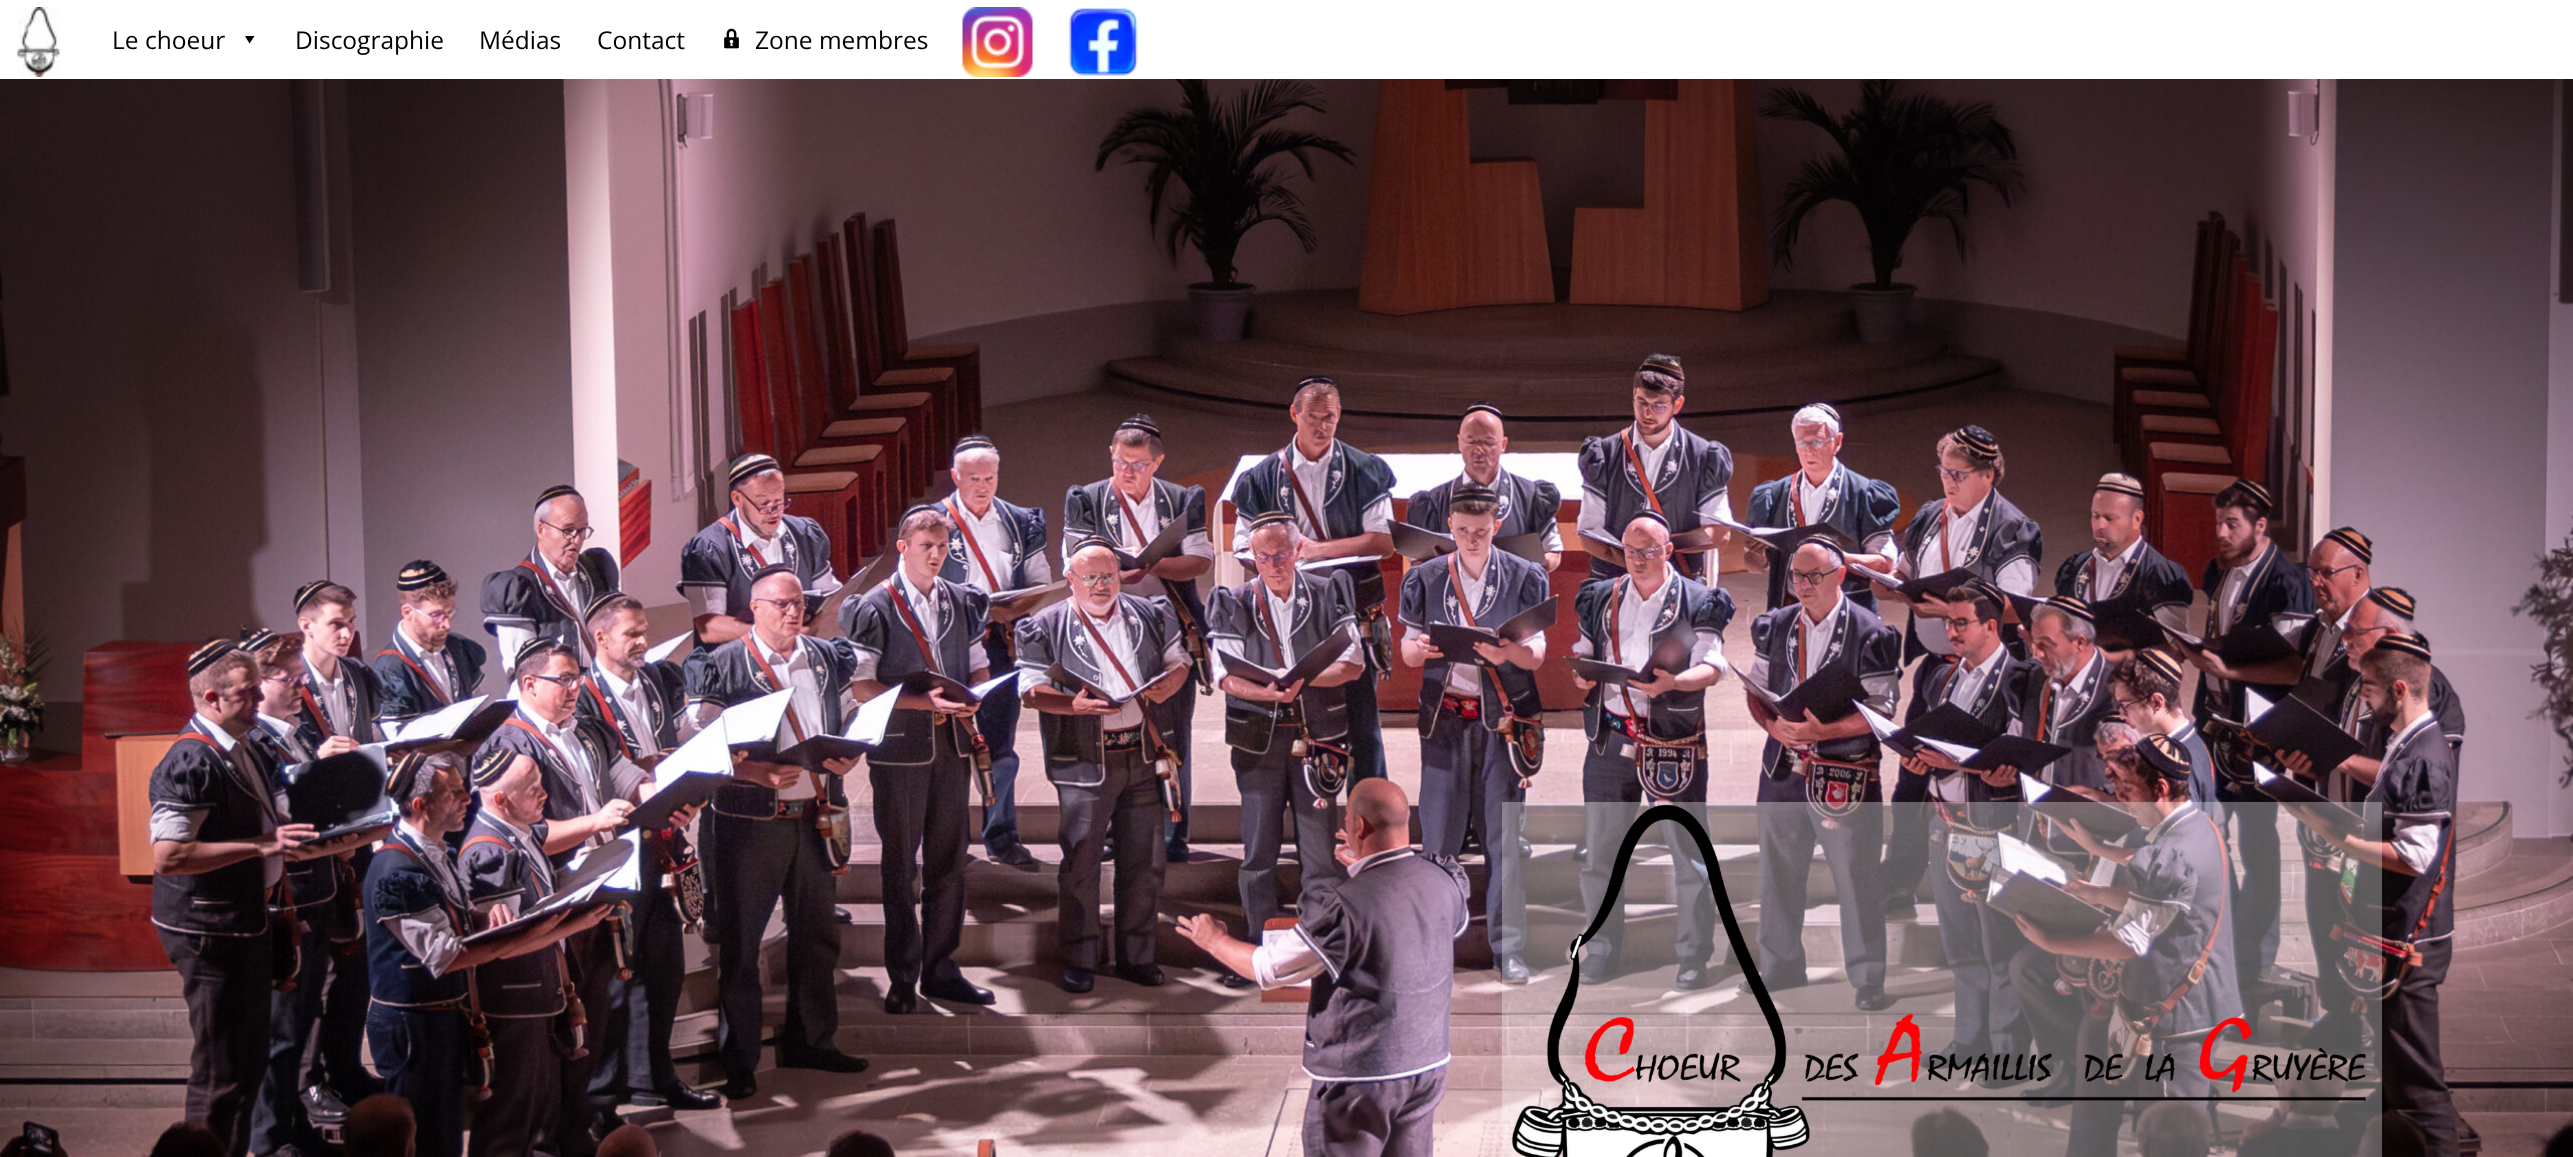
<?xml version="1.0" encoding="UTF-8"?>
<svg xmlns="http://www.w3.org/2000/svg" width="2573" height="1157">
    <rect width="100%" height="100%" fill="#FFFFFF"/>
    <image x="17" y="7" width="43" height="70" href="img_01.png"/>
    <text x="112" y="49" font-family="Open Sans" font-size="24.5" fill="#000000">Le choeur</text>
    <path d="M 254.5 36 L 249.5 43.5 L 245 36 Z" fill="#000000"/>
    <text x="295" y="49" font-family="Open Sans" font-size="24.5" fill="#000000">Discographie</text>
    <text x="479" y="49" font-family="Open Sans" font-size="24.5" fill="#000000">Médias</text>
    <text x="597" y="49" font-family="Open Sans" font-size="24.5" fill="#000000">Contact</text>
    <image x="724" y="28" width="15" height="21" href="img_02.png"/>
    <text x="755" y="49" font-family="Open Sans" font-size="24.5" fill="#000000">Zone membres</text>
    <image x="962" y="7" width="71" height="70" href="img_03.png"/>
    <image x="1069" y="8" width="69" height="68" href="img_04.png"/>
    <image x="0" y="79" width="2573" height="1078" href="img_05.png"/>
    <rect x="1502" y="802" width="880" height="355" fill="#FFFFFF" fill-opacity="0.33"/>
    <image x="1512" y="804" width="854" height="353" href="img_06.png"/>
</svg>
